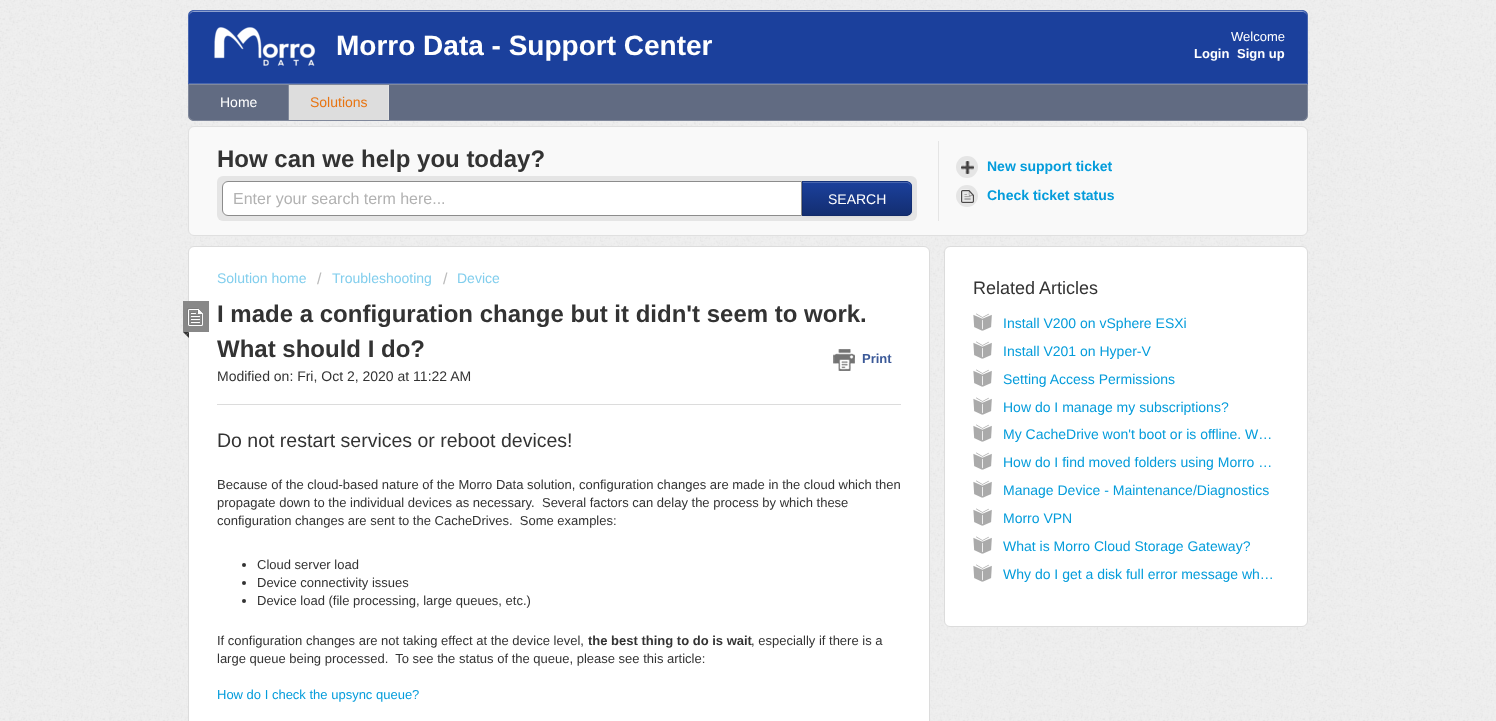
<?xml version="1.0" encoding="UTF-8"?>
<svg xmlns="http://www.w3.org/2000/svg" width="1496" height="721">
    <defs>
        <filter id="blur1" x="-50%" y="-200%" width="200%" height="500%"><feGaussianBlur stdDeviation="1"/></filter>
        <clipPath id="clip1"><path d="M 802 181 H 906 C 909.5 181 912 183.5 912 187 V 210 C 912 213.5 909.5 216 906 216 H 802 Z"/></clipPath>
        <linearGradient id="g1" gradientUnits="userSpaceOnUse" x1="857" y1="182" x2="857" y2="215"><stop offset="0" stop-color="#1B409C"/><stop offset="1" stop-color="#132E71"/></linearGradient>
    </defs>
    <rect width="100%" height="100%" fill="#EFEFEF"/>
    <image x="0" y="0" width="1496" height="721" href="img_01.png"/>
    <path d="M 194 10 H 1302 C 1305.5 10 1308 12.5 1308 16 V 84 H 188 V 16 C 188 12.5 190.5 10 194 10 Z" fill="#1B409C"/>
    <path d="M 194 12 H 1302 C 1305 12 1307 14 1307 17 C 1307 14 1305 11 1302 11 H 194 C 191 11 189 14 189 17 C 189 14 191 12 194 12 Z" fill="#8DA0CE"/>
    <path d="M 194 10.5 H 1302 C 1305 10.5 1307.5 13 1307.5 16 V 83.5 H 188.5 V 16 C 188.5 13 191 10.5 194 10.5 Z" fill="none" stroke="#FFFFFF" stroke-opacity="0.2"/>
    <image x="214" y="27" width="102" height="39" href="img_02.png"/>
    <text x="336" y="55" font-family="Liberation Sans" font-size="28" font-weight="700" fill="#FFFFFF">Morro Data - Support Center</text>
    <text x="1231" y="41" font-family="Liberation Sans" font-size="13" fill="#FFFFFF">Welcome</text>
    <text x="1194" y="58" font-family="Liberation Sans" font-size="13" font-weight="700" fill="#FFFFFF">Login</text>
    <text x="1237" y="58" font-family="Liberation Sans" font-size="13" font-weight="700" fill="#FFFFFF">Sign up</text>
    <path d="M 188 84 H 1308 V 115 C 1308 118.5 1305.5 121 1302 121 H 194 C 190.5 121 188 118.5 188 115 Z" fill="#616B82"/>
    <path d="M 188.5 84.5 H 1307.5 V 115 C 1307.5 118 1305 120.5 1302 120.5 H 194 C 191 120.5 188.5 118 188.5 115 Z" fill="none" stroke="#FFFFFF" stroke-opacity="0.2"/>
    <rect x="288" y="85" width="1" height="35" fill="#81899B"/>
    <text x="220" y="107" font-family="Liberation Sans" font-size="14" fill="#FFFFFF">Home</text>
    <rect x="289" y="85" width="99" height="35" fill="#DDDDDD"/>
    <rect x="388" y="85" width="1" height="35" fill="#E4E4E4"/>
    <text x="310" y="107" font-family="Liberation Sans" font-size="14" fill="#E87411">Solutions</text>
    <rect x="188.5" y="126.5" width="1119" height="109" rx="5.5" fill="#F9F9F9" stroke="#E0E0E0"/>
    <rect x="938" y="141" width="1" height="80" fill="#E5E5E5"/>
    <text x="217" y="167" font-family="Liberation Sans" font-size="24" font-weight="700" fill="#333333">How can we help you today?</text>
    <rect x="217" y="176" width="700" height="45" rx="6" fill="#E5E5E5"/>
    <path d="M 228 181.5 H 801.5 V 215.5 H 228 C 225 215.5 222.5 213 222.5 210 V 187 C 222.5 184 225 181.5 228 181.5 Z" fill="#FFFFFF" stroke="#8C8C8C"/>
    <text x="233" y="204" font-family="Liberation Sans" font-size="16" fill="#B2B2B2">Enter your search term here...</text>
    <rect x="802" y="182" width="110" height="35" rx="6" fill="#000000" fill-opacity="0.05" filter="url(#blur1)"/>
    <path d="M 802 181 H 906 C 909.5 181 912 183.5 912 187 V 210 C 912 213.5 909.5 216 906 216 H 802 Z" fill="#18398B"/>
    <g clip-path="url(#clip1)">
        <rect x="802" y="182" width="110" height="33" fill="url(#g1)"/>
    </g>
    <path d="M 803 183 H 906 C 909 183 911 185 911 188 V 187 C 911 184 909 182 906 182 H 803 Z" fill="#4966AF"/>
    <path d="M 802 181 L 803 182 H 907 L 910 183 C 909 182 908 181 906 181 Z" fill="#000000" fill-opacity="0.1"/>
    <path d="M 912 210 V 187 C 912 185.5 911 184 910 183 L 909.5 183.5 C 910.5 184 911 185.5 911 187 V 210 C 911 211.5 910.5 213 909.5 213.5 L 910 214 C 911 213 912 211.5 912 210 Z" fill="#000000" fill-opacity="0.1"/>
    <path d="M 906 216 C 908 216 909 215 910 214 L 907 215 H 803 L 802 216 Z" fill="#000000" fill-opacity="0.25"/>
    <path d="M 802 181 V 216 L 803 215 V 182 Z" fill="#000000" fill-opacity="0.1"/>
    <text x="828" y="204" font-family="Liberation Sans" font-size="14" fill="#FFFFFF">SEARCH</text>
    <circle cx="967" cy="167" r="11" fill="#E5E5E5"/>
    <image x="960" y="160" width="14" height="14" href="img_03.png"/>
    <text x="987" y="171" font-family="Liberation Sans" font-size="14" font-weight="700" fill="#049CDB">New support ticket</text>
    <circle cx="967" cy="196" r="11" fill="#E5E5E5"/>
    <image x="960" y="189" width="14" height="14" href="img_04.png"/>
    <text x="987" y="200" font-family="Liberation Sans" font-size="14" font-weight="700" fill="#049CDB">Check ticket status</text>
    <rect x="188.5" y="246.5" width="741" height="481" rx="5.5" fill="#FFFFFF" stroke="#DCDCDC"/>
    <text x="217" y="283" font-family="Liberation Sans" font-size="14" fill="#82CEED">Solution home</text>
    <text x="317" y="284" font-family="Liberation Sans" font-size="16" fill="#BBBBBB">/</text>
    <text x="332" y="283" font-family="Liberation Sans" font-size="14" fill="#82CEED">Troubleshooting</text>
    <text x="443" y="284" font-family="Liberation Sans" font-size="16" fill="#BBBBBB">/</text>
    <text x="457" y="283" font-family="Liberation Sans" font-size="14" fill="#82CEED">Device</text>
    <rect x="183" y="301" width="26" height="31" fill="#888888"/>
    <image x="187" y="308" width="16" height="18" href="img_05.png"/>
    <path d="M 183 332 H 189 L 186 335 Z" fill="#333333"/>
    <path d="M 189 332 V 338 L 186 335 Z" fill="#333333"/>
    <text font-family="Liberation Sans" font-size="24" font-weight="700" fill="#333333">
        <tspan x="217" y="322">I made a configuration change but it didn't seem to work.</tspan>
        <tspan x="217" y="357">What should I do?</tspan>
    </text>
    <image x="833" y="349" width="22" height="22" href="img_06.png"/>
    <text x="862" y="363" font-family="Liberation Sans" font-size="13" font-weight="700" fill="#3B5998">Print</text>
    <text x="217" y="381" font-family="Liberation Sans" font-size="14" fill="#333333">Modified on: Fri, Oct 2, 2020 at 11:22 AM</text>
    <rect x="217" y="404" width="684" height="1" fill="#DCDCDC"/>
    <text x="217" y="447" font-family="Liberation Sans" font-size="19.5" fill="#333333">Do not restart services or reboot devices!</text>
    <text font-family="Liberation Sans" font-size="13" fill="#333333" xml:space="preserve"><tspan x="217" y="489">Because of the cloud-based nature of the Morro Data solution, configuration changes are made in the cloud which then</tspan><tspan x="217" y="507">propagate down to the individual devices as necessary.  Several factors can delay the process by which these</tspan><tspan x="217" y="525">configuration changes are sent to the CacheDrives.  Some examples:</tspan></text>
    <circle cx="244" cy="565" r="2" fill="#333333"/>
    <text x="257" y="569" font-family="Liberation Sans" font-size="13" fill="#333333">Cloud server load</text>
    <circle cx="244" cy="583" r="2" fill="#333333"/>
    <text x="257" y="587" font-family="Liberation Sans" font-size="13" fill="#333333">Device connectivity issues</text>
    <circle cx="244" cy="601" r="2" fill="#333333"/>
    <text x="257" y="605" font-family="Liberation Sans" font-size="13" fill="#333333">Device load (file processing, large queues, etc.)</text>
    <text x="217" y="645" font-family="Liberation Sans" font-size="13" fill="#333333">If configuration changes are not taking effect at the device level,</text>
    <text x="588" y="645" font-family="Liberation Sans" font-size="13" font-weight="700" fill="#333333">the best thing to do is wait</text>
    <text x="751" y="645" font-family="Liberation Sans" font-size="13" fill="#333333">, especially if there is a</text>
    <text x="217" y="663" font-family="Liberation Sans" font-size="13" fill="#333333" xml:space="preserve">large queue being processed.  To see the status of the queue, please see this article:</text>
    <text x="217" y="699" font-family="Liberation Sans" font-size="13" fill="#049CDB">How do I check the upsync queue?</text>
    <rect x="944.5" y="246.5" width="363" height="380" rx="5.5" fill="#FFFFFF" stroke="#DCDCDC"/>
    <text x="973" y="294" font-family="Liberation Sans" font-size="18" fill="#333333">Related Articles</text>
    <image x="973" y="313" width="19" height="18" href="img_07.png"/>
    <text x="1003" y="328" font-family="Liberation Sans" font-size="14" fill="#049CDB">Install V200 on vSphere ESXi</text>
    <image x="973" y="341" width="19" height="18" href="img_07.png"/>
    <text x="1003" y="356" font-family="Liberation Sans" font-size="14" fill="#049CDB">Install V201 on Hyper-V</text>
    <image x="973" y="369" width="19" height="18" href="img_07.png"/>
    <text x="1003" y="384" font-family="Liberation Sans" font-size="14" fill="#049CDB">Setting Access Permissions</text>
    <image x="973" y="397" width="19" height="18" href="img_07.png"/>
    <text x="1003" y="412" font-family="Liberation Sans" font-size="14" fill="#049CDB">How do I manage my subscriptions?</text>
    <image x="973" y="424" width="19" height="18" href="img_07.png"/>
    <text x="1003" y="439" font-family="Liberation Sans" font-size="14" fill="#049CDB">My CacheDrive won't boot or is offline. W…</text>
    <image x="973" y="452" width="19" height="18" href="img_07.png"/>
    <text x="1003" y="467" font-family="Liberation Sans" font-size="14" fill="#049CDB">How do I find moved folders using Morro …</text>
    <image x="973" y="480" width="19" height="18" href="img_07.png"/>
    <text x="1003" y="495" font-family="Liberation Sans" font-size="14" fill="#049CDB">Manage Device - Maintenance/Diagnostics</text>
    <image x="973" y="508" width="19" height="18" href="img_07.png"/>
    <text x="1003" y="523" font-family="Liberation Sans" font-size="14" fill="#049CDB">Morro VPN</text>
    <image x="973" y="536" width="19" height="18" href="img_07.png"/>
    <text x="1003" y="551" font-family="Liberation Sans" font-size="14" fill="#049CDB">What is Morro Cloud Storage Gateway?</text>
    <image x="973" y="564" width="19" height="18" href="img_07.png"/>
    <text x="1003" y="579" font-family="Liberation Sans" font-size="14" fill="#049CDB">Why do I get a disk full error message wh…</text>
</svg>
